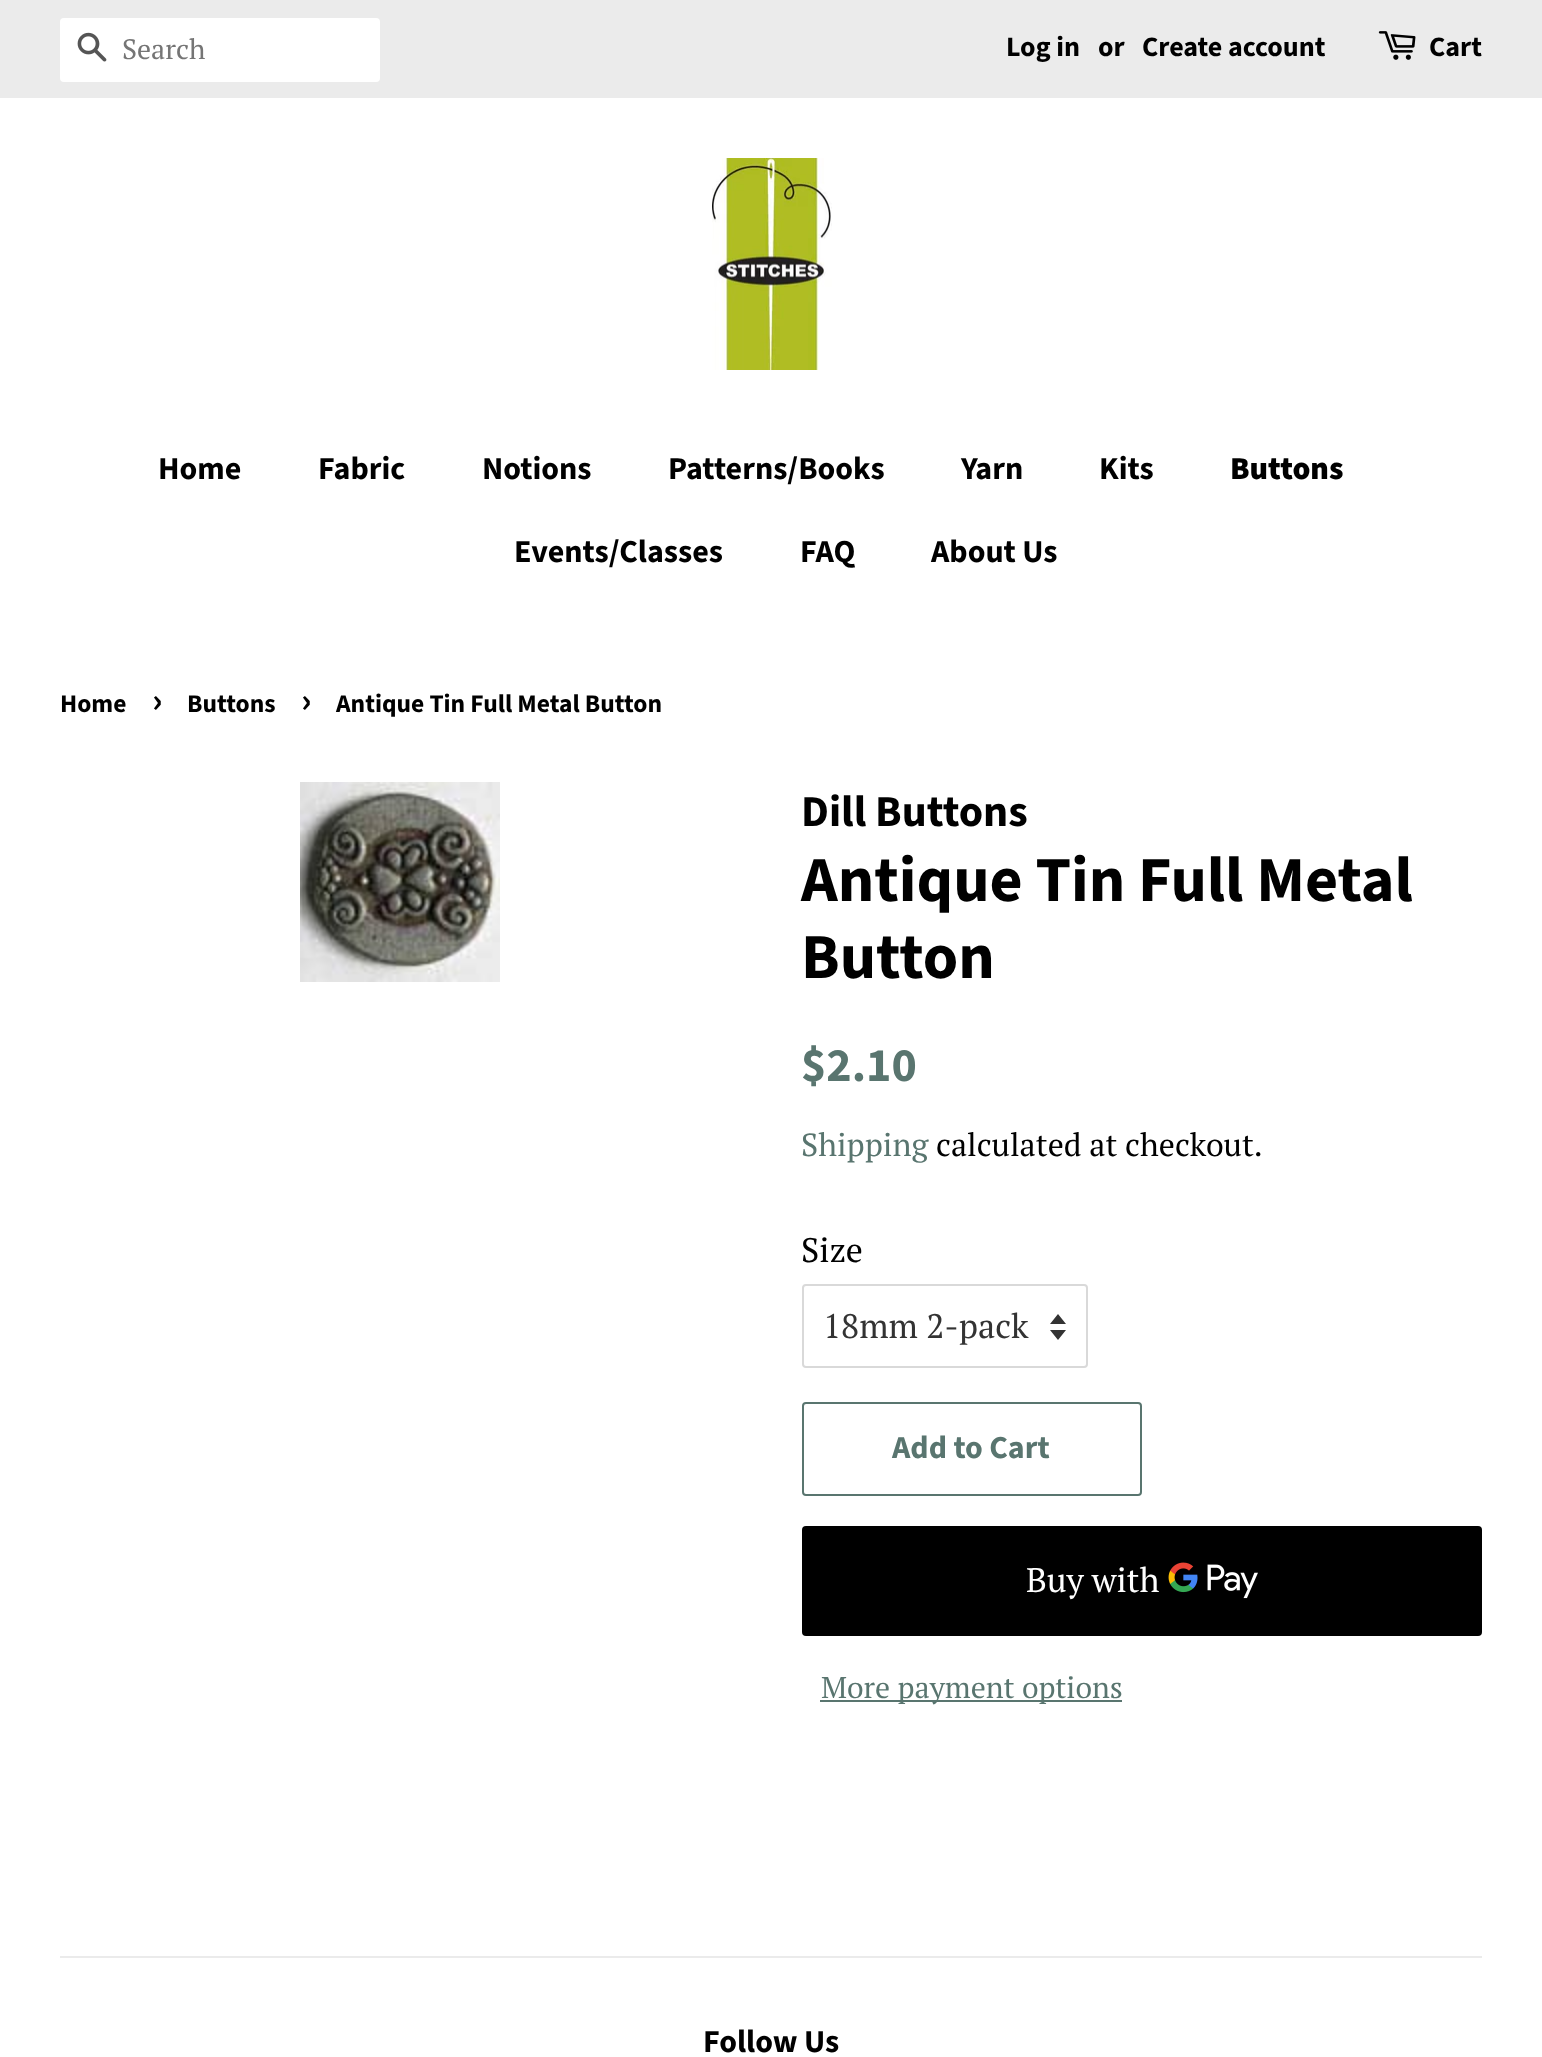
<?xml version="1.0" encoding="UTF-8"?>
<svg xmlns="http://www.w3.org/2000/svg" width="1542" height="2057">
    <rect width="100%" height="100%" fill="#FFFFFF"/>
    <rect x="0" y="0" width="1542" height="98" fill="#EBEBEB"/>
    <rect x="60" y="18" width="320" height="64" rx="4" fill="#FFFFFF"/>
    <image x="77" y="32" width="30" height="30" href="img_01.png"/>
    <text x="122" y="59" font-family="PT Serif" font-size="28" fill="#757575">Search</text>
    <text x="1006" y="56" font-family="Source Sans Pro" font-size="28" font-weight="700" fill="#000000">Log in</text>
    <text x="1098" y="56" font-family="Source Sans Pro" font-size="28" font-weight="700" fill="#000000">or</text>
    <text x="1142" y="56" font-family="Source Sans Pro" font-size="28" font-weight="700" fill="#000000">Create account</text>
    <image x="1378" y="31" width="38" height="29" href="img_02.png"/>
    <text x="1429" y="56" font-family="Source Sans Pro" font-size="28" font-weight="700" fill="#000000">Cart</text>
    <image x="712" y="158" width="120" height="212" href="img_03.png"/>
    <text x="158" y="479" font-family="Source Sans Pro" font-size="32" font-weight="700" fill="#000000">Home</text>
    <text x="318" y="479" font-family="Source Sans Pro" font-size="32" font-weight="700" fill="#000000">Fabric</text>
    <text x="482" y="479" font-family="Source Sans Pro" font-size="32" font-weight="700" fill="#000000">Notions</text>
    <text x="668" y="479" font-family="Source Sans Pro" font-size="32" font-weight="700" fill="#000000">Patterns/Books</text>
    <text x="961" y="479" font-family="Source Sans Pro" font-size="32" font-weight="700" fill="#000000">Yarn</text>
    <text x="1099" y="479" font-family="Source Sans Pro" font-size="32" font-weight="700" fill="#000000">Kits</text>
    <text x="1230" y="479" font-family="Source Sans Pro" font-size="32" font-weight="900" fill="#000000">Buttons</text>
    <text x="514" y="562" font-family="Source Sans Pro" font-size="32" font-weight="700" fill="#000000">Events/Classes</text>
    <text x="800" y="562" font-family="Source Sans Pro" font-size="32" font-weight="700" fill="#000000">FAQ</text>
    <text x="931" y="562" font-family="Source Sans Pro" font-size="32" font-weight="700" fill="#000000">About Us</text>
    <text x="60" y="712" font-family="Source Sans Pro" font-size="25.5" font-weight="700" fill="#000000">Home</text>
    <text x="152" y="712" font-family="Source Sans Pro" font-size="36" font-weight="700" fill="#000000">›</text>
    <text x="187" y="712" font-family="Source Sans Pro" font-size="25.5" font-weight="700" fill="#000000">Buttons</text>
    <text x="301" y="712" font-family="Source Sans Pro" font-size="36" font-weight="700" fill="#000000">›</text>
    <text x="336" y="712" font-family="Source Sans Pro" font-size="25.5" font-weight="700" fill="#000000">Antique Tin Full Metal Button</text>
    <image x="300" y="782" width="200" height="200" href="img_04.png"/>
    <text x="801" y="826" font-family="Source Sans Pro" font-size="44" font-weight="700" fill="#000000">Dill Buttons</text>
    <text font-family="Source Sans Pro" font-size="64" font-weight="700" fill="#000000">
        <tspan x="801" y="901">Antique Tin Full Metal</tspan>
        <tspan x="801" y="978">Button</tspan>
    </text>
    <text x="801" y="1081" font-family="Source Sans Pro" font-size="48" font-weight="700" fill="#59756F">$2.10</text>
    <text x="801" y="1156" font-family="PT Serif" font-size="32" fill="#59756F">Shipping</text>
    <text x="936" y="1156" font-family="PT Serif" font-size="32" fill="#000000">calculated at checkout.</text>
    <text x="801" y="1262" font-family="PT Serif" font-size="34" fill="#000000">Size</text>
    <path d="M 1050 1330 L 1058 1340 L 1066 1330 Z M 1058 1314 L 1050 1324 H 1066 Z" fill="#333333"/>
    <rect x="803" y="1285" width="284" height="82" rx="3" fill="none" stroke="#D9D9D9" stroke-width="2"/>
    <text x="823" y="1338" font-family="PT Serif" font-size="34" fill="#333333">18mm 2-pack</text>
    <rect x="803" y="1403" width="338" height="92" rx="3" fill="none" stroke="#59756F" stroke-width="2"/>
    <text x="892" y="1458" font-family="Source Sans Pro" font-size="32" font-weight="700" fill="#59756F">Add to Cart</text>
    <rect x="802" y="1526" width="680" height="110" rx="4" fill="#000000"/>
    <text x="1026" y="1592" font-family="PT Serif" font-size="34" fill="#FFFFFF">Buy with</text>
    <image x="1168" y="1562" width="90" height="37" href="img_05.png"/>
    <rect x="820" y="1700" width="302" height="2" fill="#59756F"/>
    <text x="821" y="1698" font-family="PT Serif" font-size="30" fill="#59756F">More payment options</text>
    <rect x="60" y="1956" width="1422" height="2" fill="#EBEBEB"/>
    <text x="703" y="2052" font-family="Source Sans Pro" font-size="32" font-weight="700" fill="#000000">Follow Us</text>
</svg>
